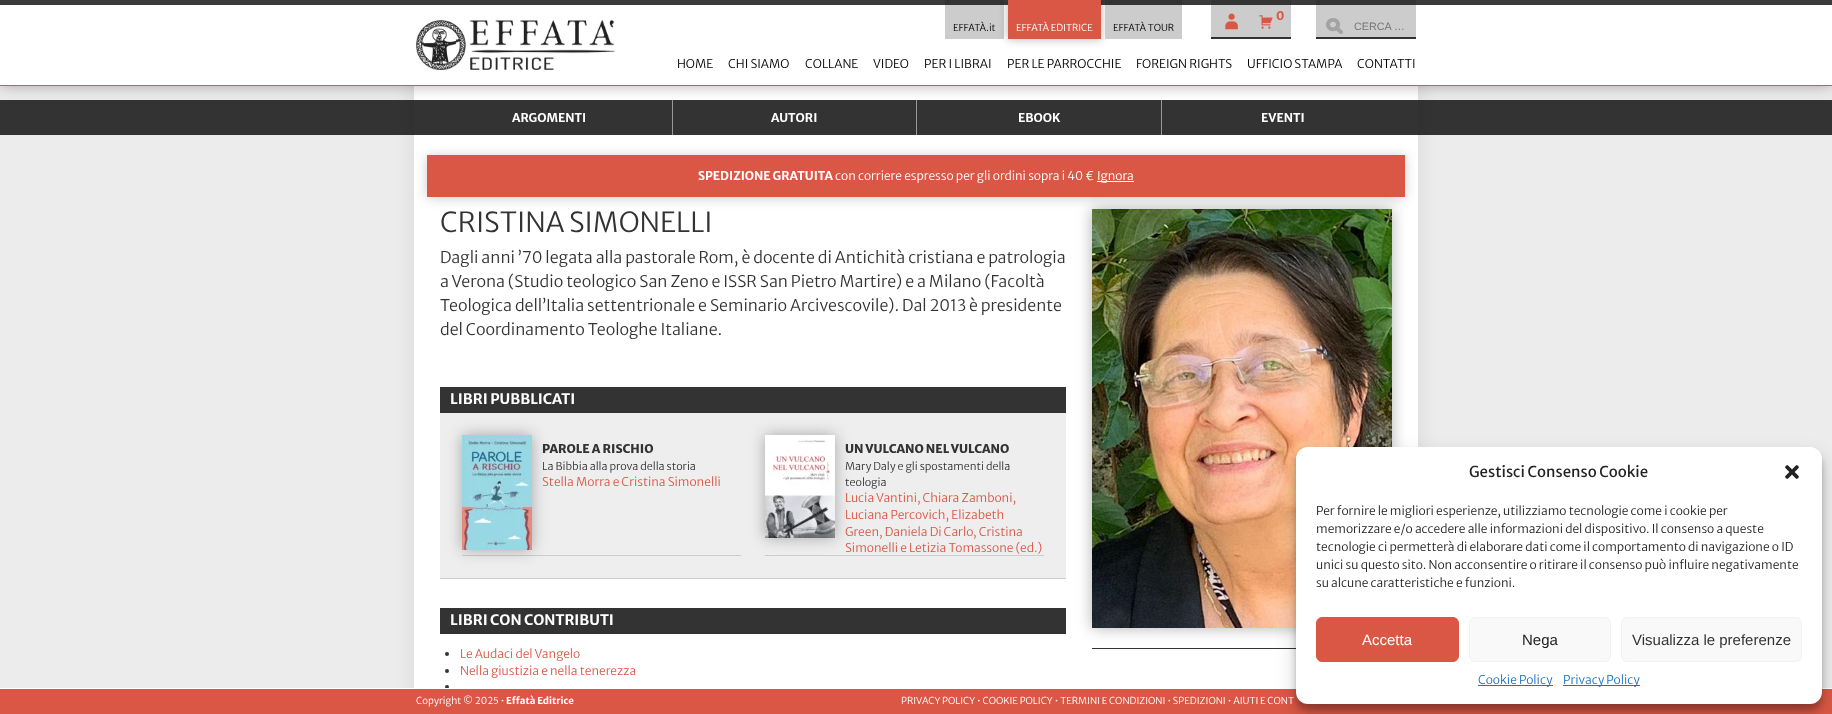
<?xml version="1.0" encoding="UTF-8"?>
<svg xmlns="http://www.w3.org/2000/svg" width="1832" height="714">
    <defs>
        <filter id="blur1" x="-50%" y="-200%" width="200%" height="500%"><feGaussianBlur stdDeviation="10"/></filter>
        <filter id="blur2" x="-50%" y="-200%" width="200%" height="500%"><feGaussianBlur stdDeviation="7.5"/></filter>
        <filter id="blur3" x="-50%" y="-200%" width="200%" height="500%"><feGaussianBlur stdDeviation="5"/></filter>
        <filter id="blur4" x="-50%" y="-200%" width="200%" height="500%"><feGaussianBlur stdDeviation="6"/></filter>
        <filter id="blur5" x="-50%" y="-200%" width="200%" height="500%"><feGaussianBlur stdDeviation="3"/></filter>
    </defs>
    <rect width="100%" height="100%" fill="#ECECEC"/>
    <rect x="0" y="100" width="1832" height="35" fill="#333333"/>
    <rect x="414" y="0" width="1004" height="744" fill="#000000" fill-opacity="0.1" filter="url(#blur1)"/>
    <rect x="414" y="86" width="1004" height="602" fill="#FFFFFF"/>
    <rect x="414" y="100" width="1004" height="35" fill="#333333"/>
    <rect x="672" y="100" width="1" height="35" fill="#999999"/>
    <rect x="916" y="100" width="1" height="35" fill="#999999"/>
    <rect x="1161" y="100" width="1" height="35" fill="#999999"/>
    <rect x="0" y="0" width="1832" height="86" fill="#000000" fill-opacity="0.3" filter="url(#blur2)"/>
    <rect x="0" y="5" width="1832" height="80" fill="#FFFFFF"/>
    <rect x="0" y="0" width="1832" height="5" fill="#3B3B3B"/>
    <rect x="0" y="85" width="1832" height="1" fill="#DB5745"/>
    <rect x="1211" y="5" width="80" height="32" fill="#CCCCCC"/>
    <rect x="1211" y="0" width="80" height="5" fill="#333333"/>
    <rect x="1211" y="37" width="80" height="2" fill="#333333"/>
    <image x="1225" y="13" width="13" height="17" href="img_01.png"/>
    <image x="1259" y="15" width="14" height="14" href="img_02.png"/>
    <text x="1276" y="20" font-family="Merriweather Sans" font-size="12" font-weight="700" fill="#DB5745">0</text>
    <image x="416" y="20" width="199" height="50" href="img_03.png"/>
    <rect x="945" y="5" width="59" height="34" fill="#CCCCCC"/>
    <rect x="945" y="0" width="59" height="5" fill="#333333"/>
    <text x="953" y="31" font-family="Merriweather Sans" font-size="9.6" font-weight="300" fill="#000000">EFFATÀ.it</text>
    <rect x="1008" y="0" width="93" height="39" fill="#000000" fill-opacity="0.3" filter="url(#blur3)"/>
    <rect x="1008" y="0" width="93" height="39" fill="#DB5745"/>
    <text x="1016" y="31" font-family="Merriweather Sans" font-size="9.6" font-weight="300" fill="#FFFFFF">EFFATÀ EDITRICE</text>
    <rect x="1105" y="5" width="77" height="34" fill="#CCCCCC"/>
    <rect x="1105" y="0" width="77" height="5" fill="#333333"/>
    <text x="1113" y="31" font-family="Merriweather Sans" font-size="9.6" font-weight="300" fill="#000000">EFFATÀ TOUR</text>
    <rect x="1316" y="5" width="100" height="32" fill="#CCCCCC"/>
    <rect x="1316" y="0" width="100" height="5" fill="#333333"/>
    <rect x="1316" y="37" width="100" height="2" fill="#333333"/>
    <image x="1326" y="18" width="17" height="16" href="img_04.png"/>
    <text x="1354" y="30" font-family="Liberation Sans" font-size="10.75" fill="#757575">CERCA …</text>
    <text x="677" y="68" font-family="Merriweather Sans" font-size="12" font-weight="300" fill="#000000">HOME</text>
    <text x="728" y="68" font-family="Merriweather Sans" font-size="12" font-weight="300" fill="#000000">CHI SIAMO</text>
    <text x="805" y="68" font-family="Merriweather Sans" font-size="12" font-weight="300" fill="#000000">COLLANE</text>
    <text x="873" y="68" font-family="Merriweather Sans" font-size="12" font-weight="300" fill="#000000">VIDEO</text>
    <text x="924" y="68" font-family="Merriweather Sans" font-size="12" font-weight="300" fill="#000000">PER I LIBRAI</text>
    <text x="1007" y="68" font-family="Merriweather Sans" font-size="12" font-weight="300" fill="#000000">PER LE PARROCCHIE</text>
    <text x="1136" y="68" font-family="Merriweather Sans" font-size="12" font-weight="300" fill="#000000">FOREIGN RIGHTS</text>
    <text x="1247" y="68" font-family="Merriweather Sans" font-size="12" font-weight="300" fill="#000000">UFFICIO STAMPA</text>
    <text x="1357" y="68" font-family="Merriweather Sans" font-size="12" font-weight="300" fill="#000000">CONTATTI</text>
    <text x="512" y="122" font-family="Merriweather Sans" font-size="12" font-weight="700" fill="#FFFFFF">ARGOMENTI</text>
    <text x="771" y="122" font-family="Merriweather Sans" font-size="12" font-weight="700" fill="#FFFFFF">AUTORI</text>
    <text x="1018" y="122" font-family="Merriweather Sans" font-size="12" font-weight="700" fill="#FFFFFF">EBOOK</text>
    <text x="1261" y="122" font-family="Merriweather Sans" font-size="12" font-weight="700" fill="#FFFFFF">EVENTI</text>
    <rect x="427" y="156" width="978" height="42" fill="#000000" fill-opacity="0.2" filter="url(#blur4)"/>
    <rect x="427" y="155" width="978" height="42" fill="#DB5745"/>
    <text x="698" y="180" font-family="Merriweather Sans" font-size="12" font-weight="700" fill="#FFFFFF">SPEDIZIONE GRATUITA</text>
    <text x="835" y="180" font-family="Merriweather Sans" font-size="12" font-weight="300" fill="#FFFFFF">con corriere espresso per gli ordini sopra i 40 €</text>
    <rect x="1097" y="181" width="37" height="1" fill="#FFFFFF"/>
    <text x="1097" y="180" font-family="Merriweather Sans" font-size="12" font-weight="300" fill="#FFFFFF">Ignora</text>
    <text x="440" y="232" font-family="Merriweather Sans" font-size="27.5" font-weight="300" fill="#333333">CRISTINA SIMONELLI</text>
    <text font-family="Merriweather Sans" font-size="16" font-weight="300" fill="#333333">
        <tspan x="440" y="263">Dagli anni ’70 legata alla pastorale Rom, è docente di Antichità cristiana e patrologia</tspan>
        <tspan x="440" y="287">a Verona (Studio teologico San Zeno e ISSR San Pietro Martire) e a Milano (Facoltà</tspan>
        <tspan x="440" y="311">Teologica dell’Italia settentrionale e Seminario Arcivescovile). Dal 2013 è presidente</tspan>
        <tspan x="440" y="335">del Coordinamento Teologhe Italiane.</tspan>
    </text>
    <rect x="440" y="387" width="626" height="26" fill="#333333"/>
    <text x="450" y="404" font-family="Merriweather Sans" font-size="14.4" font-weight="700" fill="#FFFFFF">LIBRI PUBBLICATI</text>
    <rect x="440" y="413" width="626" height="165" fill="#EEEEEE"/>
    <rect x="440" y="578" width="626" height="1" fill="#CCCCCC"/>
    <rect x="462" y="555" width="279" height="1" fill="#CCCCCC"/>
    <rect x="462" y="435" width="70" height="115" fill="#000000" fill-opacity="0.3" filter="url(#blur2)"/>
    <image x="462" y="435" width="70" height="115" href="img_05.png"/>
    <text x="542" y="453" font-family="Merriweather Sans" font-size="12" font-weight="800" fill="#333333">PAROLE A RISCHIO</text>
    <text x="542" y="470" font-family="Merriweather Sans" font-size="10.75" font-weight="300" fill="#333333">La Bibbia alla prova della storia</text>
    <text x="542" y="486" font-family="Merriweather Sans" font-size="12" font-weight="300" fill="#DB5745">Stella Morra e Cristina Simonelli</text>
    <rect x="765" y="555" width="279" height="1" fill="#CCCCCC"/>
    <rect x="765" y="435" width="70" height="103" fill="#000000" fill-opacity="0.3" filter="url(#blur2)"/>
    <image x="765" y="435" width="70" height="103" href="img_06.png"/>
    <text x="845" y="453" font-family="Merriweather Sans" font-size="12" font-weight="800" fill="#333333">UN VULCANO NEL VULCANO</text>
    <text font-family="Merriweather Sans" font-size="10.75" font-weight="300" fill="#333333">
        <tspan x="845" y="470">Mary Daly e gli spostamenti della</tspan>
        <tspan x="845" y="486">teologia</tspan>
    </text>
    <text font-family="Merriweather Sans" font-size="12" font-weight="300" fill="#DB5745">
        <tspan x="845" y="502">Lucia Vantini, Chiara Zamboni,</tspan>
        <tspan x="845" y="519">Luciana Percovich, Elizabeth</tspan>
        <tspan x="845" y="536">Green, Daniela Di Carlo, Cristina</tspan>
        <tspan x="845" y="552">Simonelli e Letizia Tomassone (ed.)</tspan>
    </text>
    <rect x="440" y="608" width="626" height="26" fill="#333333"/>
    <text x="450" y="625" font-family="Merriweather Sans" font-size="14.4" font-weight="700" fill="#FFFFFF">LIBRI CON CONTRIBUTI</text>
    <circle cx="447" cy="654" r="2" fill="#333333"/>
    <text x="460" y="658" font-family="Merriweather Sans" font-size="12" font-weight="300" fill="#DB5745">Le Audaci del Vangelo</text>
    <circle cx="447" cy="671" r="2" fill="#333333"/>
    <text x="460" y="675" font-family="Merriweather Sans" font-size="12" font-weight="300" fill="#DB5745">Nella giustizia e nella tenerezza</text>
    <circle cx="447" cy="687" r="2" fill="#333333"/>
    <rect x="1092" y="209" width="300" height="419" fill="#000000" fill-opacity="0.3" filter="url(#blur2)"/>
    <image x="1092" y="209" width="300" height="419" href="img_07.png"/>
    <rect x="1092" y="648" width="204" height="1" fill="#333333"/>
    <rect x="0" y="689" width="1832" height="25" fill="#DB5745"/>
    <rect x="0" y="688" width="1832" height="1" fill="#FFFFFF"/>
    <rect x="1296" y="453" width="526" height="257" rx="12" fill="#000000" fill-opacity="0.23" filter="url(#blur5)"/>
    <rect x="1296" y="457" width="526" height="257" rx="12" fill="#000000" fill-opacity="0.19" filter="url(#blur1)"/>
    <rect x="1296" y="447" width="526" height="257" rx="12" fill="#FFFFFF"/>
    <text x="1469" y="477" font-family="Merriweather Sans" font-size="15" fill="#222222">Gestisci Consenso Cookie</text>
    <image x="1785" y="465" width="14" height="14" href="img_08.png"/>
    <text font-family="Merriweather Sans" font-size="12" font-weight="300" fill="#222222">
        <tspan x="1316" y="515">Per fornire le migliori esperienze, utilizziamo tecnologie come i cookie per</tspan>
        <tspan x="1316" y="533">memorizzare e/o accedere alle informazioni del dispositivo. Il consenso a queste</tspan>
        <tspan x="1316" y="551">tecnologie ci permetterà di elaborare dati come il comportamento di navigazione o ID</tspan>
        <tspan x="1316" y="569">unici su questo sito. Non acconsentire o ritirare il consenso può influire negativamente</tspan>
        <tspan x="1316" y="587">su alcune caratteristiche e funzioni.</tspan>
    </text>
    <rect x="1316.5" y="617.5" width="142" height="44" rx="5.5" fill="#DB5745" stroke="#DB5745"/>
    <text x="1362" y="645" font-family="Liberation Sans" font-size="15" fill="#FFFFFF">Accetta</text>
    <rect x="1469.5" y="617.5" width="141" height="44" rx="5.5" fill="#F9F9F9" stroke="#F2F2F2"/>
    <text x="1522" y="645" font-family="Liberation Sans" font-size="15" fill="#222222">Nega</text>
    <rect x="1621.5" y="617.5" width="180" height="44" rx="5.5" fill="#F9F9F9" stroke="#F2F2F2"/>
    <text x="1632" y="645" font-family="Liberation Sans" font-size="15" fill="#333333">Visualizza le preferenze</text>
    <rect x="1478" y="685" width="75" height="1" fill="#1E73BE"/>
    <text x="1478" y="684" font-family="Merriweather Sans" font-size="12" font-weight="300" fill="#1E73BE">Cookie Policy</text>
    <rect x="1563" y="685" width="77" height="1" fill="#1E73BE"/>
    <text x="1563" y="684" font-family="Merriweather Sans" font-size="12" font-weight="300" fill="#1E73BE">Privacy Policy</text>
    <text x="416" y="704" font-family="Merriweather Sans" font-size="9.6" font-weight="300" fill="#FFFFFF">Copyright © 2025 •</text>
    <text x="506" y="704" font-family="Merriweather Sans" font-size="9.6" font-weight="700" fill="#FFFFFF">Effatà Editrice</text>
    <text x="901" y="704" font-family="Merriweather Sans" font-size="9.6" font-weight="300" fill="#FFFFFF">PRIVACY POLICY • COOKIE POLICY • TERMINI E CONDIZIONI • SPEDIZIONI • AIUTI E CONT</text>
</svg>
